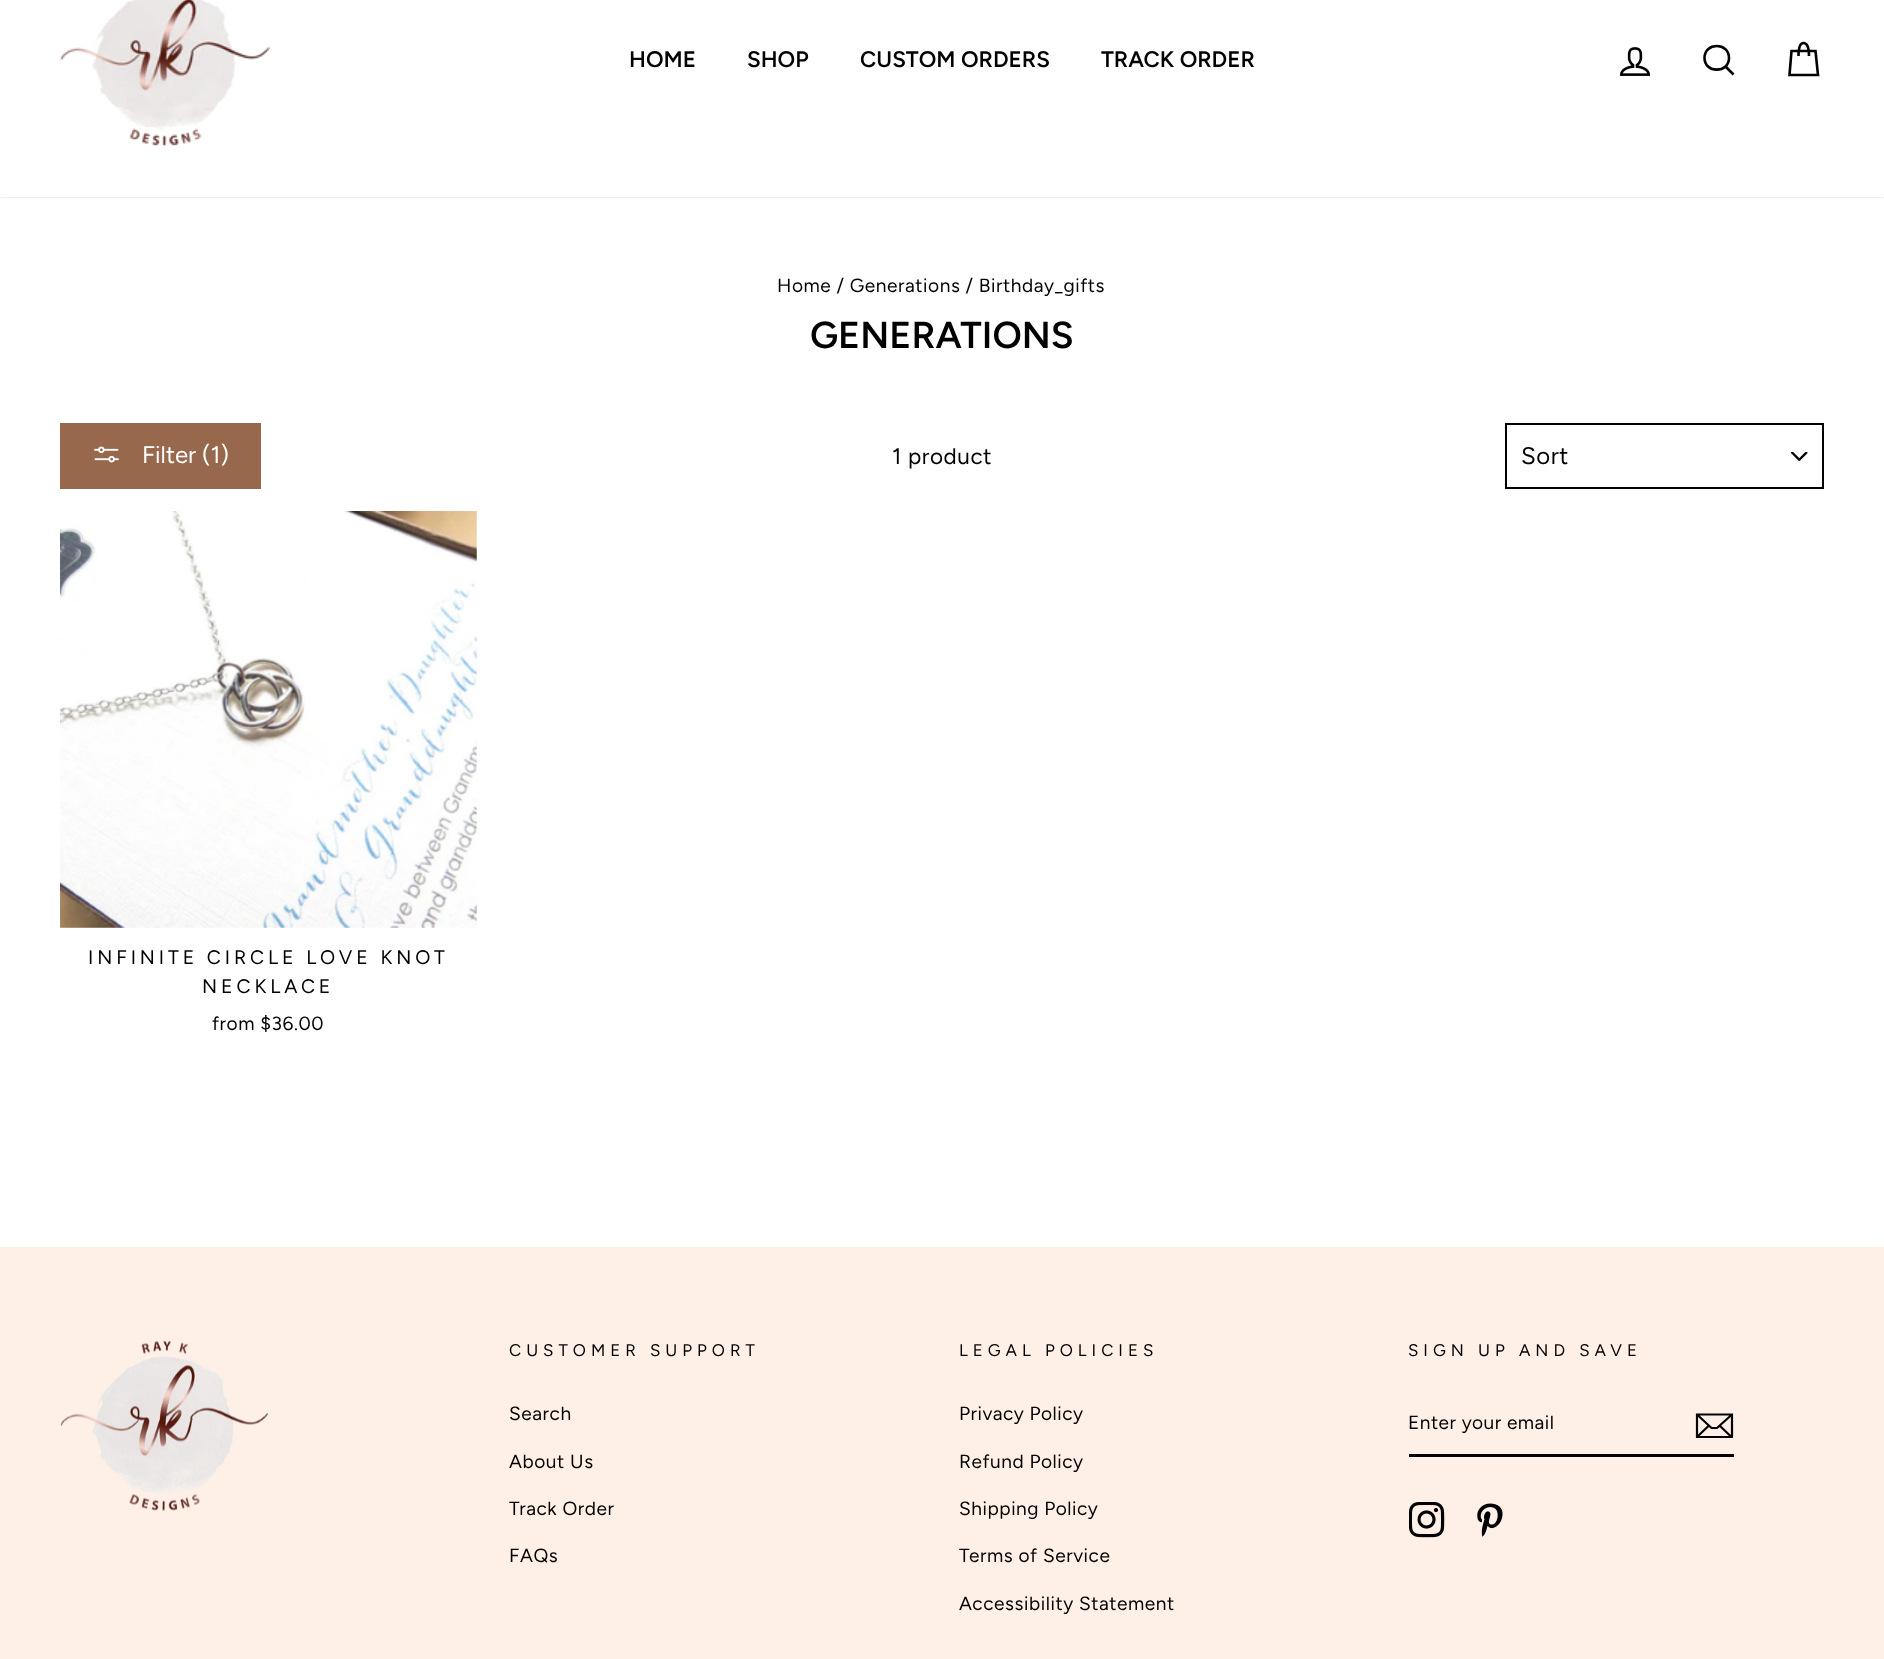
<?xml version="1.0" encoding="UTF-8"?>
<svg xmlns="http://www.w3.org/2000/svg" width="1884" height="1659">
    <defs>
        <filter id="blur1" x="-50%" y="-200%" width="200%" height="500%"><feGaussianBlur stdDeviation="1"/></filter>
    </defs>
    <rect width="100%" height="100%" fill="#FFFFFF"/>
    <rect x="0" y="-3" width="1884" height="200" fill="#000000" fill-opacity="0.2" filter="url(#blur1)"/>
    <rect x="0" y="0" width="1884" height="197" fill="#FFFFFF"/>
    <image x="60" y="0" width="210" height="147" href="img_01.png"/>
    <text x="629" y="67" font-family="Figtree" font-size="22.5" font-weight="600" fill="#000000">HOME</text>
    <text x="747" y="67" font-family="Figtree" font-size="22.5" font-weight="600" fill="#000000">SHOP</text>
    <text x="860" y="67" font-family="Figtree" font-size="22.5" font-weight="600" fill="#000000">CUSTOM ORDERS</text>
    <text x="1101" y="67" font-family="Figtree" font-size="22.5" font-weight="600" fill="#000000">TRACK ORDER</text>
    <image x="1619" y="47" width="32" height="29" href="img_02.png"/>
    <path d="M 1729 58 C 1729 73.5 1704.5 73.5 1704.5 58 C 1704.5 42 1729 42 1729 58 Z M 1733.5 74.5 L 1725.5 66.5" fill="none" stroke="#000000" stroke-width="2.6"/>
    <path d="M 1798.5 56 C 1798.5 45.5 1800.5 43 1803.5 43 C 1806.5 43 1809 45.5 1809 56 M 1791.5 51 H 1815.5 L 1818 75 H 1789.5 Z" fill="none" stroke="#000000" stroke-width="2.6"/>
    <text x="777" y="292" font-family="Figtree" font-size="19.1" letter-spacing="0.55" fill="#000000">Home / Generations / Birthday_gifts</text>
    <text x="810" y="348" font-family="Figtree" font-size="37.5" font-weight="600" fill="#000000">GENERATIONS</text>
    <rect x="60" y="423" width="201" height="66" fill="#97684C"/>
    <image x="94" y="446" width="25" height="17" href="img_03.png"/>
    <text x="142" y="463" font-family="Figtree" font-size="24" fill="#FFFFFF">Filter (1)</text>
    <text x="892" y="464" font-family="Figtree" font-size="22.5" letter-spacing="0.55" fill="#000000">1 product</text>
    <image x="1791" y="452" width="17" height="9" href="img_04.png"/>
    <rect x="1506" y="424" width="317" height="64" fill="none" stroke="#000000" stroke-width="2"/>
    <text x="1521" y="464" font-family="Figtree" font-size="24" letter-spacing="0.5" fill="#000000">Sort</text>
    <image x="60" y="511" width="417" height="417" href="img_05.png"/>
    <text x="88" y="964" font-family="Figtree" font-size="19.5" letter-spacing="3.9" fill="#000000">INFINITE CIRCLE LOVE KNOT</text>
    <text x="202" y="993" font-family="Figtree" font-size="19.5" letter-spacing="3.9" fill="#000000">NECKLACE</text>
    <text x="212" y="1030" font-family="Figtree" font-size="19.1" letter-spacing="0.55" fill="#000000">from $36.00</text>
    <rect x="0" y="1247" width="1884" height="412" fill="#FFF0E7"/>
    <image x="60" y="1340" width="209" height="171" href="img_06.png"/>
    <text x="509" y="1356" font-family="Figtree" font-size="16.9" letter-spacing="5" fill="#000000">CUSTOMER SUPPORT</text>
    <text x="509" y="1420" font-family="Figtree" font-size="19.1" letter-spacing="0.55" fill="#000000">Search</text>
    <text x="509" y="1468" font-family="Figtree" font-size="19.1" letter-spacing="0.55" fill="#000000">About Us</text>
    <text x="509" y="1515" font-family="Figtree" font-size="19.1" letter-spacing="0.55" fill="#000000">Track Order</text>
    <text x="509" y="1562" font-family="Figtree" font-size="19.1" letter-spacing="0.55" fill="#000000">FAQs</text>
    <text x="959" y="1356" font-family="Figtree" font-size="16.9" letter-spacing="5" fill="#000000">LEGAL POLICIES</text>
    <text x="959" y="1420" font-family="Figtree" font-size="19.1" letter-spacing="0.55" fill="#000000">Privacy Policy</text>
    <text x="959" y="1468" font-family="Figtree" font-size="19.1" letter-spacing="0.55" fill="#000000">Refund Policy</text>
    <text x="959" y="1515" font-family="Figtree" font-size="19.1" letter-spacing="0.55" fill="#000000">Shipping Policy</text>
    <text x="959" y="1562" font-family="Figtree" font-size="19.1" letter-spacing="0.55" fill="#000000">Terms of Service</text>
    <text x="959" y="1610" font-family="Figtree" font-size="19.1" letter-spacing="0.55" fill="#000000">Accessibility Statement</text>
    <text x="1408" y="1356" font-family="Figtree" font-size="16.9" letter-spacing="5" fill="#000000">SIGN UP AND SAVE</text>
    <rect x="1409" y="1454" width="325" height="3" fill="#000000"/>
    <text x="1408" y="1429" font-family="Figtree" font-size="19.1" letter-spacing="0.5" fill="#000000">Enter your email</text>
    <path d="M 1732 1437 H 1697 V 1414.5 H 1732 Z M 1697 1414.5 L 1711.5 1428 H 1717 L 1732 1414.5 M 1709 1425.5 L 1697.5 1436.5 M 1731.5 1437 L 1719.5 1425.5" fill="none" stroke="#000000" stroke-width="2.2"/>
    <image x="1409" y="1502" width="36" height="36" href="img_07.png"/>
    <image x="1477" y="1503" width="26" height="34" href="img_08.png"/>
</svg>
